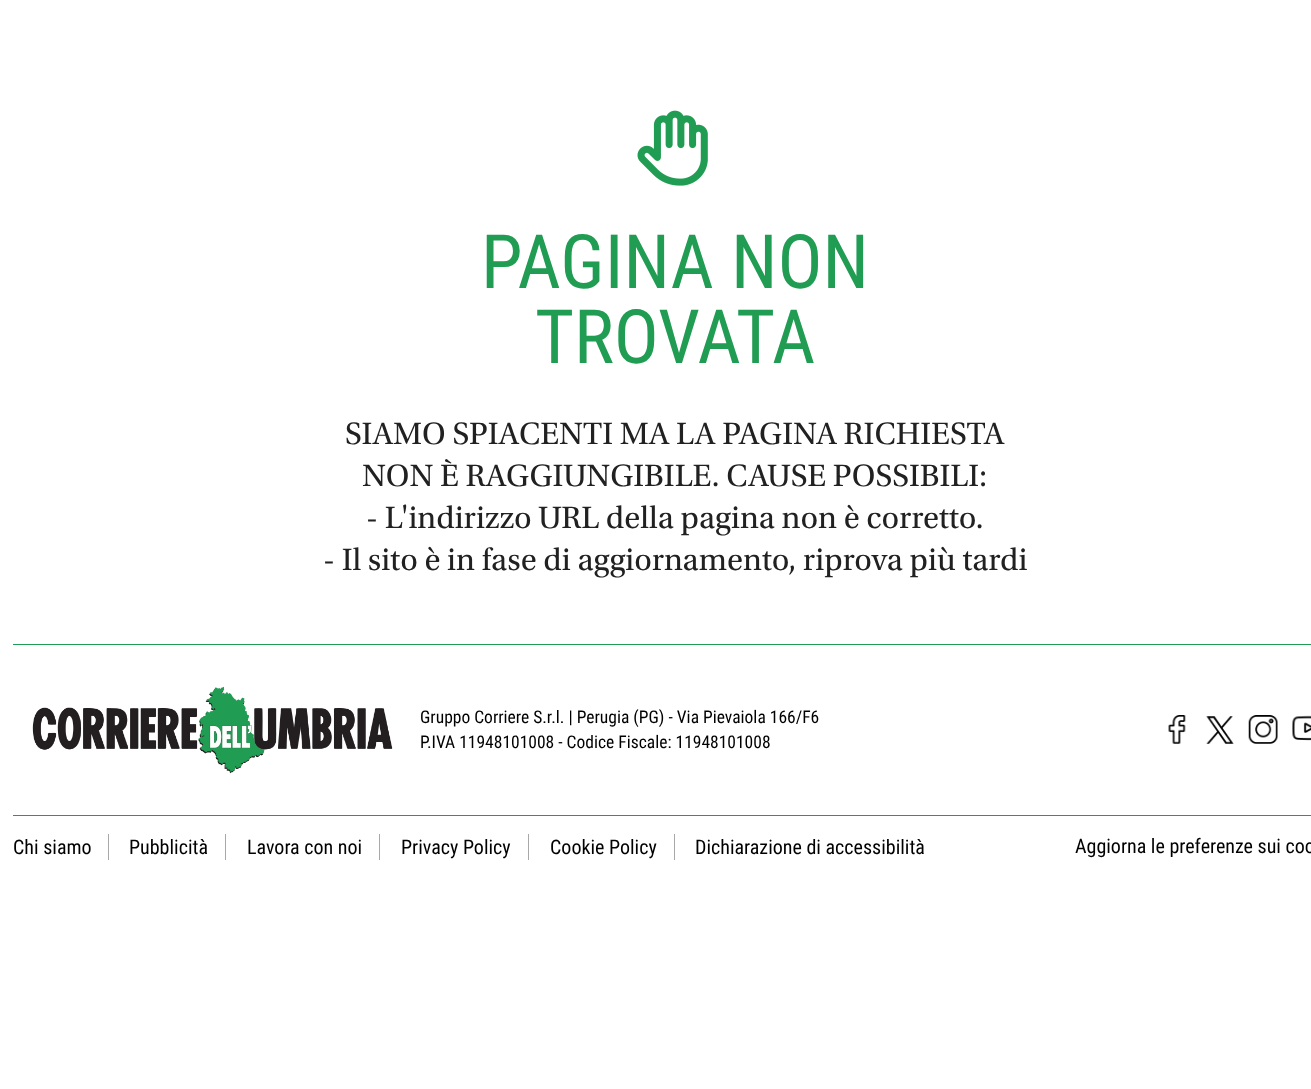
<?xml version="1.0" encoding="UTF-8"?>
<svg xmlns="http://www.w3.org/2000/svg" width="1311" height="1089">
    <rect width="100%" height="100%" fill="#FFFFFF"/>
    <image x="637" y="110" width="71" height="76" href="img_01.png"/>
    <text x="481" y="288" font-family="Roboto Condensed" font-size="75" fill="#219C53">PAGINA NON</text>
    <text x="535" y="363" font-family="Roboto Condensed" font-size="75" fill="#219C53">TROVATA</text>
    <text x="345" y="444" font-family="Utopia" font-size="32.5" fill="#212121">SIAMO SPIACENTI MA LA PAGINA RICHIESTA</text>
    <text x="362" y="486" font-family="Utopia" font-size="32.5" fill="#212121">NON È RAGGIUNGIBILE. CAUSE POSSIBILI:</text>
    <text x="366" y="528" font-family="Utopia" font-size="32.5" fill="#212121">- L'indirizzo URL della pagina non è corretto.</text>
    <text x="323" y="570" font-family="Utopia" font-size="32.5" fill="#212121">- Il sito è in fase di aggiornamento, riprova più tardi</text>
    <rect x="13" y="644" width="1298" height="1" fill="#219C53"/>
    <rect x="13" y="815" width="1298" height="1" fill="#219C53"/>
    <image x="32" y="686" width="361" height="88" href="img_02.png"/>
    <text font-family="Roboto Condensed" font-size="17.5" fill="#000000">
        <tspan x="420" y="723">Gruppo Corriere S.r.l. | Perugia (PG) - Via Pievaiola 166/F6</tspan>
        <tspan x="420" y="748">P.IVA 11948101008 - Codice Fiscale: 11948101008</tspan>
    </text>
    <image x="1168" y="715" width="18" height="29" href="img_03.png"/>
    <image x="1206" y="716" width="28" height="28" href="img_04.png"/>
    <image x="1248" y="715" width="30" height="29" href="img_05.png"/>
    <image x="1292" y="715" width="19" height="26" href="img_06.png"/>
    <rect x="108" y="834" width="1" height="26" fill="#A8A8A8"/>
    <text x="13" y="854" font-family="Roboto Condensed" font-size="20" fill="#000000">Chi siamo</text>
    <rect x="225" y="834" width="1" height="26" fill="#A8A8A8"/>
    <text x="129" y="854" font-family="Roboto Condensed" font-size="20" fill="#000000">Pubblicità</text>
    <rect x="379" y="834" width="1" height="26" fill="#A8A8A8"/>
    <text x="247" y="854" font-family="Roboto Condensed" font-size="20" fill="#000000">Lavora con noi</text>
    <rect x="528" y="834" width="1" height="26" fill="#A8A8A8"/>
    <text x="401" y="854" font-family="Roboto Condensed" font-size="20" fill="#000000">Privacy Policy</text>
    <rect x="674" y="834" width="1" height="26" fill="#A8A8A8"/>
    <text x="550" y="854" font-family="Roboto Condensed" font-size="20" fill="#000000">Cookie Policy</text>
    <text x="695" y="854" font-family="Roboto Condensed" font-size="20" fill="#000000">Dichiarazione di accessibilità</text>
    <text x="1075" y="853" font-family="Roboto Condensed" font-size="20" fill="#000000">Aggiorna le preferenze sui coo</text>
</svg>
